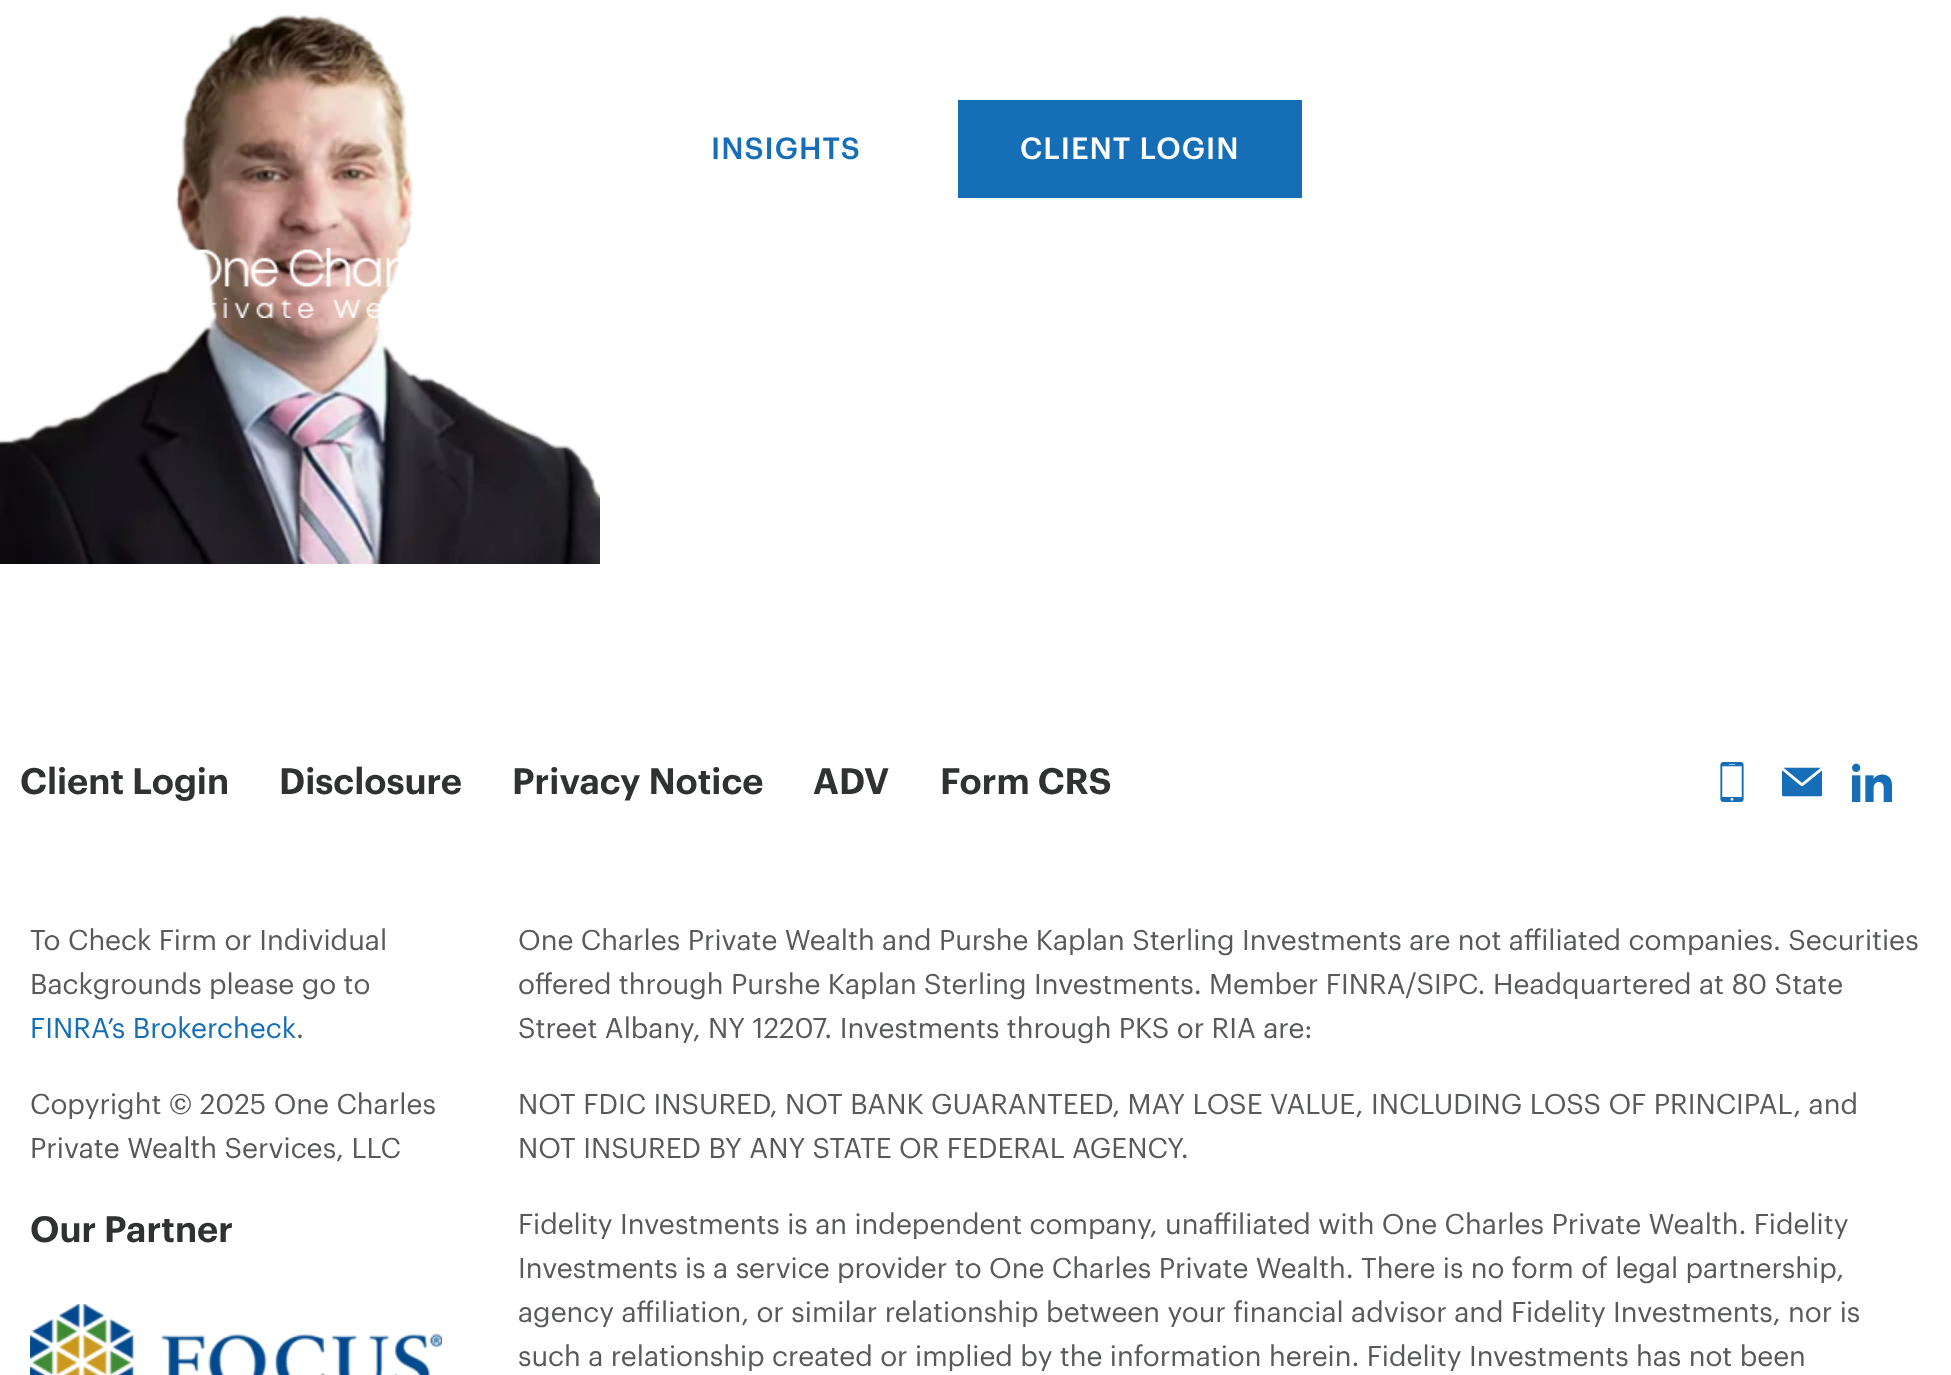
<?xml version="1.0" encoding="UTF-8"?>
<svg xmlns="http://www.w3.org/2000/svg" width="1951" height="1375">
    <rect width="100%" height="100%" fill="#FFFFFF"/>
    <image x="0" y="14" width="600" height="550" href="img_01.png"/>
    <text x="711" y="159" font-family="Graphik" font-size="30" font-weight="500" letter-spacing="1" fill="#156EB6">INSIGHTS</text>
    <rect x="958" y="100" width="344" height="98" fill="#156EB6"/>
    <text x="1020" y="159" font-family="Graphik" font-size="30" font-weight="500" letter-spacing="1" fill="#FFFFFF">CLIENT LOGIN</text>
    <image x="196" y="248" width="204" height="70" href="img_02.png"/>
    <text x="20" y="794" font-family="Graphik" font-size="36" font-weight="600" fill="#303131">Client Login</text>
    <text x="279" y="794" font-family="Graphik" font-size="36" font-weight="600" fill="#303131">Disclosure</text>
    <text x="512" y="794" font-family="Graphik" font-size="36" font-weight="600" fill="#303131">Privacy Notice</text>
    <text x="813" y="794" font-family="Graphik" font-size="36" font-weight="600" fill="#303131">ADV</text>
    <text x="940" y="794" font-family="Graphik" font-size="36" font-weight="600" fill="#303131">Form CRS</text>
    <image x="1720" y="762" width="24" height="40" href="img_03.png"/>
    <image x="1782" y="767" width="40" height="30" href="img_04.png"/>
    <image x="1852" y="763" width="40" height="39" href="img_05.png"/>
    <text font-family="Graphik" font-size="28" fill="#58595B">
        <tspan x="30" y="950">To Check Firm or Individual</tspan>
        <tspan x="30" y="994">Backgrounds please go to</tspan>
    </text>
    <text x="30" y="1038" font-family="Graphik" font-size="28" fill="#156EB6">FINRA’s Brokercheck</text>
    <text x="296" y="1038" font-family="Graphik" font-size="28" fill="#58595B">.</text>
    <text font-family="Graphik" font-size="28" fill="#58595B">
        <tspan x="30" y="1114">Copyright © 2025 One Charles</tspan>
        <tspan x="30" y="1158">Private Wealth Services, LLC</tspan>
    </text>
    <text x="30" y="1242" font-family="Graphik" font-size="36" font-weight="600" fill="#303131">Our Partner</text>
    <image x="30" y="1304" width="412" height="71" href="img_06.png"/>
    <text font-family="Graphik" font-size="28" fill="#58595B">
        <tspan x="518" y="950">One Charles Private Wealth and Purshe Kaplan Sterling Investments are not affiliated companies. Securities</tspan>
        <tspan x="518" y="994">offered through Purshe Kaplan Sterling Investments. Member FINRA/SIPC. Headquartered at 80 State</tspan>
        <tspan x="518" y="1038">Street Albany, NY 12207. Investments through PKS or RIA are:</tspan>
    </text>
    <text font-family="Graphik" font-size="28" fill="#58595B">
        <tspan x="518" y="1114">NOT FDIC INSURED, NOT BANK GUARANTEED, MAY LOSE VALUE, INCLUDING LOSS OF PRINCIPAL, and</tspan>
        <tspan x="518" y="1158">NOT INSURED BY ANY STATE OR FEDERAL AGENCY.</tspan>
    </text>
    <text font-family="Graphik" font-size="28" fill="#58595B">
        <tspan x="518" y="1234">Fidelity Investments is an independent company, unaffiliated with One Charles Private Wealth. Fidelity</tspan>
        <tspan x="518" y="1278">Investments is a service provider to One Charles Private Wealth. There is no form of legal partnership,</tspan>
        <tspan x="518" y="1322">agency affiliation, or similar relationship between your financial advisor and Fidelity Investments, nor is</tspan>
        <tspan x="518" y="1366">such a relationship created or implied by the information herein. Fidelity Investments has not been</tspan>
    </text>
</svg>
